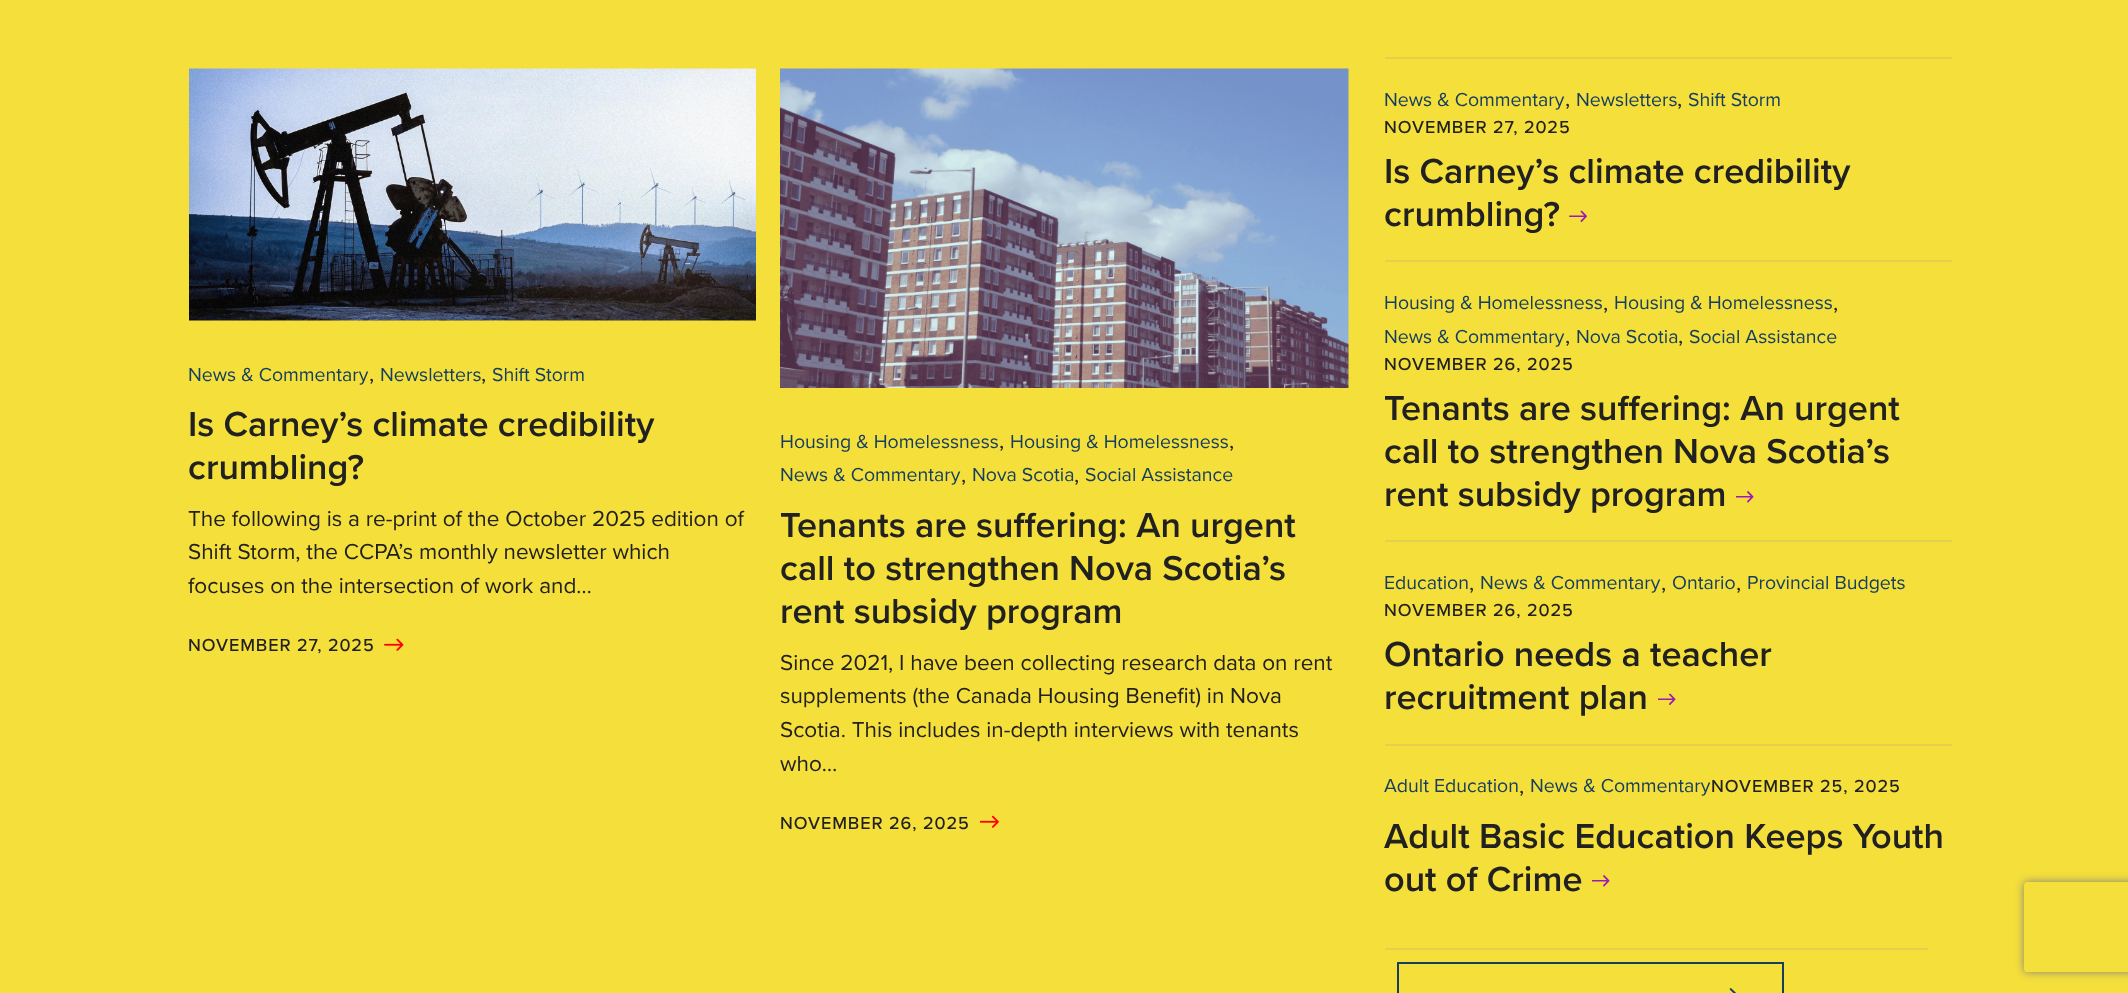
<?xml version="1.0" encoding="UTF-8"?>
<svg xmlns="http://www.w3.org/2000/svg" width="2128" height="993">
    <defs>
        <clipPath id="clip1"><path d="M 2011 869 H 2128 V 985 H 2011 Z M 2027 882 H 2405 C 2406.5 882 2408 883.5 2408 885 V 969 C 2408 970.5 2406.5 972 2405 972 H 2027 C 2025.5 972 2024 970.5 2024 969 V 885 C 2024 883.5 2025.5 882 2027 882 Z" clip-rule="evenodd"/></clipPath>
        <filter id="blur1" x="-50%" y="-200%" width="200%" height="500%"><feGaussianBlur stdDeviation="4"/></filter>
    </defs>
    <rect width="100%" height="100%" fill="#F5DF3A"/>
    <image x="189" y="68" width="567" height="253" href="img_01.png"/>
    <text x="188" y="381" font-family="Proxima Nova" font-size="19.5" fill="#153E61">News &amp; Commentary</text>
    <text x="369" y="381" font-family="Proxima Nova" font-size="22.5" fill="#212121">,</text>
    <text x="380" y="381" font-family="Proxima Nova" font-size="19.5" fill="#153E61">Newsletters</text>
    <text x="481" y="381" font-family="Proxima Nova" font-size="22.5" fill="#212121">,</text>
    <text x="492" y="381" font-family="Proxima Nova" font-size="19.5" fill="#153E61">Shift Storm</text>
    <text font-family="Proxima Nova" font-size="36" font-weight="600" fill="#212121">
        <tspan x="188" y="436">Is Carney’s climate credibility</tspan>
        <tspan x="188" y="479">crumbling?</tspan>
    </text>
    <text font-family="Proxima Nova" font-size="22.5" fill="#212121">
        <tspan x="188" y="526">The following is a re-print of the October 2025 edition of</tspan>
        <tspan x="188" y="559">Shift Storm, the CCPA’s monthly newsletter which</tspan>
        <tspan x="188" y="593">focuses on the intersection of work and…</tspan>
    </text>
    <text x="188" y="651" font-family="Proxima Nova" font-size="18" font-weight="500" letter-spacing="0.9" fill="#212121">NOVEMBER 27, 2025</text>
    <image x="384" y="638" width="20" height="13" href="img_02.png"/>
    <image x="780" y="68" width="569" height="320" href="img_03.png"/>
    <text x="780" y="448" font-family="Proxima Nova" font-size="19.5" fill="#153E61">Housing &amp; Homelessness</text>
    <text x="999" y="448" font-family="Proxima Nova" font-size="22.5" fill="#212121">,</text>
    <text x="1010" y="448" font-family="Proxima Nova" font-size="19.5" fill="#153E61">Housing &amp; Homelessness</text>
    <text x="1229" y="448" font-family="Proxima Nova" font-size="22.5" fill="#212121">,</text>
    <text x="780" y="481" font-family="Proxima Nova" font-size="19.5" fill="#153E61">News &amp; Commentary</text>
    <text x="961" y="482" font-family="Proxima Nova" font-size="22.5" fill="#212121">,</text>
    <text x="972" y="481" font-family="Proxima Nova" font-size="19.5" fill="#153E61">Nova Scotia</text>
    <text x="1074" y="482" font-family="Proxima Nova" font-size="22.5" fill="#212121">,</text>
    <text x="1085" y="481" font-family="Proxima Nova" font-size="19.5" fill="#153E61">Social Assistance</text>
    <text font-family="Proxima Nova" font-size="36" font-weight="600" fill="#212121">
        <tspan x="780" y="537">Tenants are suffering: An urgent</tspan>
        <tspan x="780" y="580">call to strengthen Nova Scotia’s</tspan>
        <tspan x="780" y="623">rent subsidy program</tspan>
    </text>
    <text font-family="Proxima Nova" font-size="22.5" fill="#212121">
        <tspan x="780" y="670">Since 2021, I have been collecting research data on rent</tspan>
        <tspan x="780" y="703">supplements (the Canada Housing Benefit) in Nova</tspan>
        <tspan x="780" y="737">Scotia. This includes in-depth interviews with tenants</tspan>
        <tspan x="780" y="771">who…</tspan>
    </text>
    <text x="780" y="829" font-family="Proxima Nova" font-size="18" font-weight="500" letter-spacing="0.9" fill="#212121">NOVEMBER 26, 2025</text>
    <image x="980" y="815" width="19" height="13" href="img_04.png"/>
    <rect x="1385" y="57" width="567" height="2" fill="#E3D14D"/>
    <text x="1384" y="106" font-family="Proxima Nova" font-size="19.5" fill="#153E61">News &amp; Commentary</text>
    <text x="1565" y="106" font-family="Proxima Nova" font-size="22.5" fill="#212121">,</text>
    <text x="1576" y="106" font-family="Proxima Nova" font-size="19.5" fill="#153E61">Newsletters</text>
    <text x="1677" y="106" font-family="Proxima Nova" font-size="22.5" fill="#212121">,</text>
    <text x="1688" y="106" font-family="Proxima Nova" font-size="19.5" fill="#153E61">Shift Storm</text>
    <text x="1384" y="133" font-family="Proxima Nova" font-size="18" font-weight="500" letter-spacing="0.9" fill="#212121">NOVEMBER 27, 2025</text>
    <text font-family="Proxima Nova" font-size="36" font-weight="600" fill="#212121">
        <tspan x="1384" y="183">Is Carney’s climate credibility</tspan>
        <tspan x="1384" y="226">crumbling?</tspan>
    </text>
    <image x="1569" y="210" width="18" height="12" href="img_05.png"/>
    <rect x="1385" y="260" width="567" height="2" fill="#E3D14D"/>
    <text x="1384" y="309" font-family="Proxima Nova" font-size="19.5" fill="#153E61">Housing &amp; Homelessness</text>
    <text x="1603" y="310" font-family="Proxima Nova" font-size="22.5" fill="#212121">,</text>
    <text x="1614" y="309" font-family="Proxima Nova" font-size="19.5" fill="#153E61">Housing &amp; Homelessness</text>
    <text x="1833" y="310" font-family="Proxima Nova" font-size="22.5" fill="#212121">,</text>
    <text x="1384" y="343" font-family="Proxima Nova" font-size="19.5" fill="#153E61">News &amp; Commentary</text>
    <text x="1565" y="343" font-family="Proxima Nova" font-size="22.5" fill="#212121">,</text>
    <text x="1576" y="343" font-family="Proxima Nova" font-size="19.5" fill="#153E61">Nova Scotia</text>
    <text x="1678" y="343" font-family="Proxima Nova" font-size="22.5" fill="#212121">,</text>
    <text x="1689" y="343" font-family="Proxima Nova" font-size="19.5" fill="#153E61">Social Assistance</text>
    <text x="1384" y="370" font-family="Proxima Nova" font-size="18" font-weight="500" letter-spacing="0.9" fill="#212121">NOVEMBER 26, 2025</text>
    <text font-family="Proxima Nova" font-size="36" font-weight="600" fill="#212121">
        <tspan x="1384" y="420">Tenants are suffering: An urgent</tspan>
        <tspan x="1384" y="463">call to strengthen Nova Scotia’s</tspan>
        <tspan x="1384" y="506">rent subsidy program</tspan>
    </text>
    <image x="1736" y="491" width="18" height="12" href="img_06.png"/>
    <rect x="1385" y="540" width="567" height="2" fill="#E3D14D"/>
    <text x="1384" y="589" font-family="Proxima Nova" font-size="19.5" fill="#153E61">Education</text>
    <text x="1469" y="590" font-family="Proxima Nova" font-size="22.5" fill="#212121">,</text>
    <text x="1480" y="589" font-family="Proxima Nova" font-size="19.5" fill="#153E61">News &amp; Commentary</text>
    <text x="1661" y="590" font-family="Proxima Nova" font-size="22.5" fill="#212121">,</text>
    <text x="1672" y="589" font-family="Proxima Nova" font-size="19.5" fill="#153E61">Ontario</text>
    <text x="1736" y="590" font-family="Proxima Nova" font-size="22.5" fill="#212121">,</text>
    <text x="1747" y="589" font-family="Proxima Nova" font-size="19.5" fill="#153E61">Provincial Budgets</text>
    <text x="1384" y="616" font-family="Proxima Nova" font-size="18" font-weight="500" letter-spacing="0.9" fill="#212121">NOVEMBER 26, 2025</text>
    <text font-family="Proxima Nova" font-size="36" font-weight="600" fill="#212121">
        <tspan x="1384" y="666">Ontario needs a teacher</tspan>
        <tspan x="1384" y="709">recruitment plan</tspan>
    </text>
    <image x="1658" y="693" width="18" height="12" href="img_07.png"/>
    <rect x="1385" y="744" width="567" height="2" fill="#E3D14D"/>
    <text x="1384" y="792" font-family="Proxima Nova" font-size="19.5" fill="#153E61">Adult Education</text>
    <text x="1519" y="793" font-family="Proxima Nova" font-size="22.5" fill="#212121">,</text>
    <text x="1530" y="792" font-family="Proxima Nova" font-size="19.5" fill="#153E61">News &amp; Commentary</text>
    <text x="1711" y="792" font-family="Proxima Nova" font-size="18" font-weight="500" letter-spacing="0.9" fill="#212121">NOVEMBER 25, 2025</text>
    <text font-family="Proxima Nova" font-size="36" font-weight="600" fill="#212121">
        <tspan x="1384" y="848">Adult Basic Education Keeps Youth</tspan>
        <tspan x="1384" y="891">out of Crime</tspan>
    </text>
    <image x="1592" y="875" width="18" height="12" href="img_06.png"/>
    <rect x="1385" y="948" width="543" height="2" fill="#E3D14D"/>
    <rect x="1398" y="963" width="385" height="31" fill="none" stroke="#153E61" stroke-width="2"/>
    <image x="1729" y="988" width="7" height="5" href="img_08.png"/>
    <g clip-path="url(#clip1)">
        <rect x="2024" y="882" width="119" height="90" rx="3" fill="#808080" filter="url(#blur1)"/>
    </g>
</svg>
